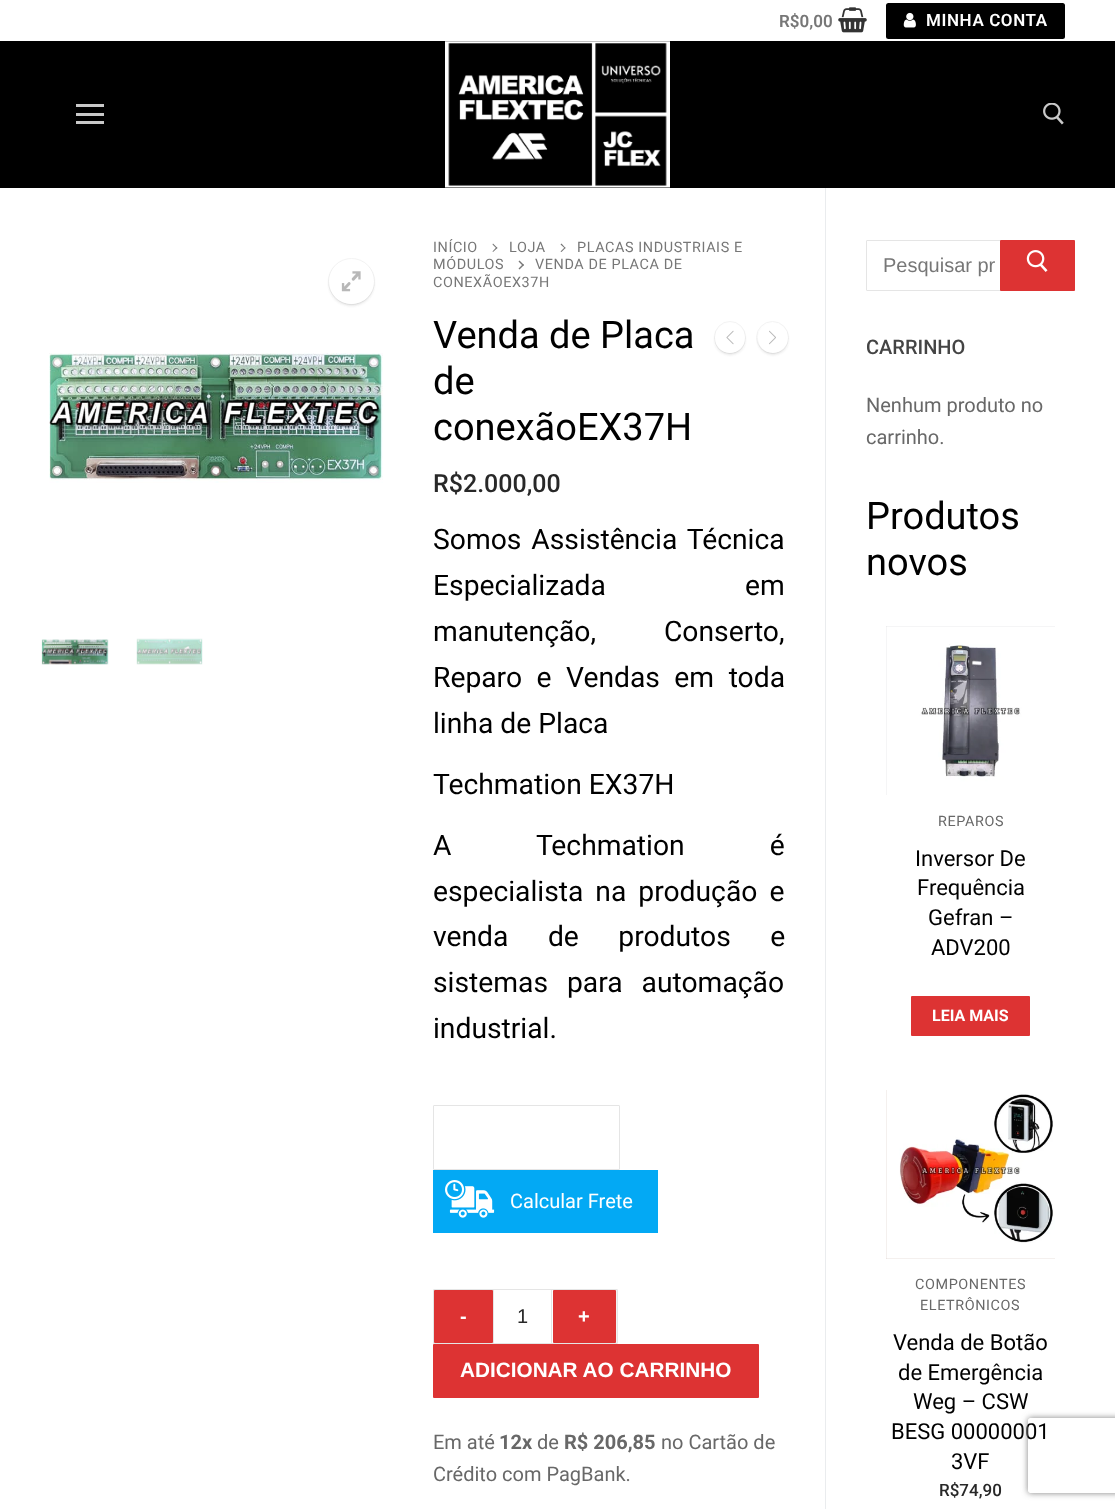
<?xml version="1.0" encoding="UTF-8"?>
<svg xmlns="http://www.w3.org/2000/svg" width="1115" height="1509">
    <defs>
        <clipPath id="clip1"><path d="M 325 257 H 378 V 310 H 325 Z M 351.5 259 C 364 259 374 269 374 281.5 C 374 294 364 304 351.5 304 C 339 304 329 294 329 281.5 C 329 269 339 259 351.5 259 Z" clip-rule="evenodd"/></clipPath>
        <filter id="blur1" x="-50%" y="-200%" width="200%" height="500%"><feGaussianBlur stdDeviation="1"/></filter>
        <clipPath id="clip2"><path d="M 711 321 H 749 V 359 H 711 Z M 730 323 C 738.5 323 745 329.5 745 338 C 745 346.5 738.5 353 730 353 C 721.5 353 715 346.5 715 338 C 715 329.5 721.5 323 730 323 Z" clip-rule="evenodd"/></clipPath>
        <clipPath id="clip3"><path d="M 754 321 H 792 V 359 H 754 Z M 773 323 C 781.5 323 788 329.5 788 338 C 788 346.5 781.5 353 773 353 C 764.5 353 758 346.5 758 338 C 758 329.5 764.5 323 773 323 Z" clip-rule="evenodd"/></clipPath>
        <clipPath id="clip4"><path d="M 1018 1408 H 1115 V 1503 H 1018 Z M 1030.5 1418 H 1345.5 C 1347 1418 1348 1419 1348 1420.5 V 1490.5 C 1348 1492 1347 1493 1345.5 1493 H 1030.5 C 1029 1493 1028 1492 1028 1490.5 V 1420.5 C 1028 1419 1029 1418 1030.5 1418 Z" clip-rule="evenodd"/></clipPath>
        <filter id="blur2" x="-50%" y="-200%" width="200%" height="500%"><feGaussianBlur stdDeviation="3"/></filter>
    </defs>
    <rect width="100%" height="100%" fill="#FFFFFF"/>
    <text x="779" y="27" font-family="Roboto" font-size="17" font-weight="600" fill="#777777">R$0,00</text>
    <image x="838" y="7" width="29" height="26" href="img_01.png"/>
    <rect x="886" y="3" width="179" height="36" rx="2.5" fill="#000000"/>
    <image x="903" y="12" width="13" height="16" href="img_02.png"/>
    <text x="926" y="26" font-family="Roboto" font-size="17" font-weight="600" letter-spacing="0.6" fill="#FFFFFF">MINHA CONTA</text>
    <rect x="0" y="41" width="1115" height="147" fill="#000000"/>
    <rect x="76" y="113" width="28" height="3" fill="#C9C9C9"/>
    <rect x="76" y="104" width="28" height="3" fill="#C9C9C9"/>
    <rect x="76" y="121" width="28" height="3" fill="#C9C9C9"/>
    <image x="445" y="41" width="225" height="147" href="img_03.png"/>
    <image x="1043" y="103" width="21" height="22" href="img_04.png"/>
    <rect x="825" y="188" width="1" height="1321" fill="#EAECEE"/>
    <circle cx="351.5" cy="281.5" r="23" fill="none" stroke="#F3F3F3"/>
    <g clip-path="url(#clip1)">
        <rect x="329" y="261" width="45" height="45" rx="22.5" fill="#666666" fill-opacity="0.16" filter="url(#blur1)"/>
    </g>
    <circle cx="351.5" cy="281.5" r="22.5" fill="#FFFFFF" fill-opacity="0.5"/>
    <image x="341" y="271" width="20" height="21" href="img_05.png"/>
    <image x="49" y="353" width="334" height="130" href="img_06.png"/>
    <image x="41" y="639" width="68" height="26" href="img_07.png"/>
    <image x="136" y="638" width="67" height="27" href="img_08.png"/>
    <text x="433" y="252" font-family="Roboto" font-size="14.4" letter-spacing="0.6" fill="#777777">INÍCIO</text>
    <path d="M 497.5 248 L 493 252 L 492.5 251.5 L 496.5 247 Z" fill="#777777"/>
    <path d="M 497.5 248 L 496.5 248.5 L 492.5 244.5 L 493 243.5 Z" fill="#777777"/>
    <text x="577" y="252" font-family="Roboto" font-size="14.4" letter-spacing="0.6" fill="#777777">PLACAS INDUSTRIAIS E</text>
    <text x="433" y="269" font-family="Roboto" font-size="14.4" letter-spacing="0.6" fill="#777777">MÓDULOS</text>
    <path d="M 565.5 248 L 561.5 252 L 560.5 251.5 L 565 247 Z" fill="#777777"/>
    <path d="M 565.5 248 L 565 248.5 L 560.5 244.5 L 561.5 243.5 Z M 524 265 L 519.5 269.5 L 518.5 268.5 L 523 264 Z" fill="#777777"/>
    <path d="M 524 265 L 523 266 L 518.5 261.5 L 519.5 260.5 Z" fill="#777777"/>
    <text x="509" y="252" font-family="Roboto" font-size="14.4" letter-spacing="0.6" fill="#777777">LOJA</text>
    <text x="535" y="269" font-family="Roboto" font-size="14.4" letter-spacing="0.6" fill="#777777">VENDA DE PLACA DE</text>
    <text x="433" y="287" font-family="Roboto" font-size="14.4" letter-spacing="0.6" fill="#777777">CONEXÃOEX37H</text>
    <text font-family="Roboto" font-size="38" fill="#000000">
        <tspan x="433" y="348">Venda de Placa</tspan>
        <tspan x="433" y="394">de</tspan>
        <tspan x="433" y="440">conexãoEX37H</tspan>
    </text>
    <rect x="714.5" y="321.5" width="31" height="32" rx="15.5" fill="none" stroke="#F3F3F3"/>
    <g clip-path="url(#clip2)">
        <rect x="715" y="325" width="30" height="30" rx="15" fill="#666666" fill-opacity="0.16" filter="url(#blur1)"/>
    </g>
    <circle cx="730" cy="338" r="15" fill="#FFFFFF" fill-opacity="0.5"/>
    <image x="726" y="330" width="8" height="15" href="img_09.png"/>
    <circle cx="772.5" cy="337.5" r="16" fill="none" stroke="#F3F3F3"/>
    <g clip-path="url(#clip3)">
        <rect x="758" y="325" width="30" height="30" rx="15" fill="#666666" fill-opacity="0.16" filter="url(#blur1)"/>
    </g>
    <circle cx="773" cy="338" r="15" fill="#FFFFFF" fill-opacity="0.5"/>
    <image x="769" y="330" width="7" height="15" href="img_10.png"/>
    <text x="433" y="492" font-family="Roboto" font-size="25" font-weight="500" fill="#282828">R$2.000,00</text>
    <text font-family="Roboto" font-size="28.25" fill="#000000">
        <tspan x="433" y="549" word-spacing="3">Somos Assistência Técnica</tspan>
        <tspan x="433" y="595" word-spacing="132">Especializada em</tspan>
        <tspan x="433" y="641" word-spacing="61">manutenção, Conserto,</tspan>
        <tspan x="433" y="687" word-spacing="7.5">Reparo e Vendas em toda</tspan>
        <tspan x="433" y="733">linha de Placa</tspan>
    </text>
    <text x="433" y="794" font-family="Roboto" font-size="28.25" fill="#000000">Techmation EX37H</text>
    <text font-family="Roboto" font-size="28.25" fill="#000000">
        <tspan x="433" y="855" word-spacing="78">A Techmation é</tspan>
        <tspan x="433" y="901" word-spacing="5">especialista na produção e</tspan>
        <tspan x="433" y="946" word-spacing="32.5">venda de produtos e</tspan>
        <tspan x="433" y="992" word-spacing="12">sistemas para automação</tspan>
        <tspan x="433" y="1038">industrial.</tspan>
    </text>
    <rect x="433.5" y="1105.5" width="186" height="64" rx="0.5" fill="none" stroke="#E5E5E5"/>
    <rect x="433" y="1170" width="225" height="63" fill="#03A9F4"/>
    <image x="445" y="1180" width="50" height="38" href="img_11.png"/>
    <text x="510" y="1208" font-family="Roboto" font-size="20" fill="#FFFFFF">Calcular Frete</text>
    <rect x="433.5" y="1289.5" width="184" height="54" rx="0.5" fill="#F2F2F2" stroke="#E5E5E5"/>
    <rect x="434" y="1290" width="59" height="53" rx="1" fill="#DD3333"/>
    <text x="460" y="1323" font-family="Liberation Sans" font-size="20" font-weight="700" fill="#FFFFFF">-</text>
    <rect x="494" y="1290" width="59" height="53" fill="#FFFFFF"/>
    <rect x="551" y="1290" width="1" height="53" fill="#E5E5E5"/>
    <rect x="493" y="1290" width="1" height="53" fill="#E5E5E5"/>
    <text x="517" y="1323" font-family="Liberation Sans" font-size="20" fill="#282828">1</text>
    <rect x="553" y="1290" width="63" height="53" rx="1" fill="#DD3333"/>
    <text x="578" y="1323" font-family="Liberation Sans" font-size="20" font-weight="700" fill="#FFFFFF">+</text>
    <rect x="433" y="1344" width="326" height="54" rx="1" fill="#DD3333"/>
    <text x="460" y="1377" font-family="Liberation Sans" font-size="20.75" font-weight="700" fill="#FFFFFF">ADICIONAR AO CARRINHO</text>
    <text x="433" y="1449" font-family="Roboto" font-size="20" fill="#686868">Em até</text>
    <text x="499" y="1449" font-family="Roboto" font-size="20" font-weight="700" fill="#686868">12x</text>
    <text x="537" y="1449" font-family="Roboto" font-size="20" fill="#686868">de</text>
    <text x="564" y="1449" font-family="Roboto" font-size="20" font-weight="700" fill="#686868">R$ 206,85</text>
    <text x="661" y="1449" font-family="Roboto" font-size="20" fill="#686868">no Cartão de</text>
    <text x="433" y="1481" font-family="Roboto" font-size="20" fill="#686868">Crédito com PagBank.</text>
    <rect x="866.5" y="240.5" width="208" height="50" rx="0.5" fill="none" stroke="#E5E5E5"/>
    <text x="883" y="272" font-family="Liberation Sans" font-size="20" fill="#777777">Pesquisar pr</text>
    <rect x="1000" y="240" width="75" height="51" rx="1" fill="#DD3333"/>
    <image x="1026" y="250" width="22" height="22" href="img_12.png"/>
    <text x="866" y="354" font-family="Roboto" font-size="20" font-weight="500" fill="#444444">CARRINHO</text>
    <text font-family="Roboto" font-size="20" fill="#686868">
        <tspan x="866" y="412">Nenhum produto no</tspan>
        <tspan x="866" y="444">carrinho.</tspan>
    </text>
    <text font-family="Roboto" font-size="38" fill="#000000">
        <tspan x="866" y="529">Produtos</tspan>
        <tspan x="866" y="575">novos</tspan>
    </text>
    <rect x="886" y="626" width="169" height="169" fill="#D5D5D8"/>
    <image x="886" y="626" width="169" height="169" href="img_13.png"/>
    <text x="938" y="826" font-family="Roboto" font-size="14.4" letter-spacing="0.6" fill="#686868">REPAROS</text>
    <text x="915" y="866" font-family="Roboto" font-size="22" fill="#000000">Inversor De</text>
    <text x="917" y="895" font-family="Roboto" font-size="22" fill="#000000">Frequência</text>
    <text x="928" y="925" font-family="Roboto" font-size="22" fill="#000000">Gefran –</text>
    <text x="931" y="955" font-family="Roboto" font-size="22" fill="#000000">ADV200</text>
    <rect x="911" y="996" width="119" height="40" rx="1" fill="#DD3333"/>
    <text x="932" y="1021" font-family="Roboto" font-size="16" font-weight="700" fill="#FFFFFF">LEIA MAIS</text>
    <rect x="886" y="1090" width="169" height="169" fill="#D1C0BB"/>
    <image x="886" y="1090" width="169" height="169" href="img_14.png"/>
    <text x="915" y="1289" font-family="Roboto" font-size="14.4" letter-spacing="0.6" fill="#686868">COMPONENTES</text>
    <text x="920" y="1310" font-family="Roboto" font-size="14.4" letter-spacing="0.6" fill="#686868">ELETRÔNICOS</text>
    <text x="893" y="1350" font-family="Roboto" font-size="22" fill="#000000">Venda de Botão</text>
    <text x="898" y="1380" font-family="Roboto" font-size="22" fill="#000000">de Emergência</text>
    <text x="913" y="1409" font-family="Roboto" font-size="22" fill="#000000">Weg – CSW</text>
    <text x="891" y="1439" font-family="Roboto" font-size="22" fill="#000000">BESG 00000001</text>
    <text x="951" y="1469" font-family="Roboto" font-size="22" fill="#000000">3VF</text>
    <text x="939" y="1496" font-family="Roboto" font-size="17" font-weight="500" fill="#282828">R$74,90</text>
    <g clip-path="url(#clip4)">
        <rect x="1028" y="1418" width="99" height="75" rx="2.5" fill="#808080" filter="url(#blur2)"/>
    </g>
</svg>
